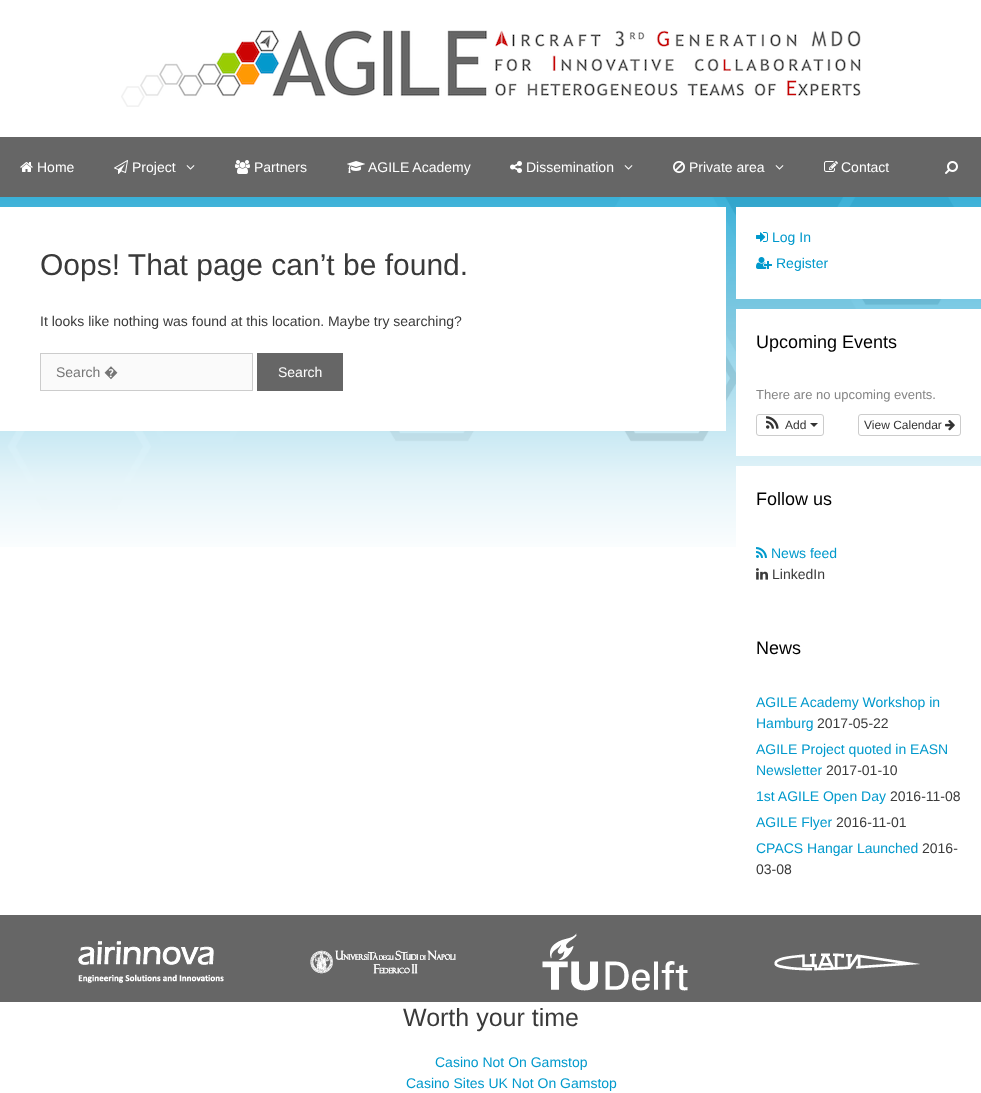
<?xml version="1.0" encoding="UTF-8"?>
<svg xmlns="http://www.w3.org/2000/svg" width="981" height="1093">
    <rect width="100%" height="100%" fill="#FFFFFF"/>
    <image x="0" y="197" width="981" height="350" href="img_01.png"/>
    <image x="121" y="30" width="740" height="77" href="img_02.png"/>
    <rect x="0" y="137" width="981" height="60" fill="#666666"/>
    <image x="20" y="162" width="13" height="10" href="img_03.png"/>
    <text x="37" y="172" font-family="Liberation Sans" font-size="14" fill="#FFFFFF">Home</text>
    <image x="114" y="160" width="14" height="14" href="img_04.png"/>
    <text x="132" y="172" font-family="Liberation Sans" font-size="14" fill="#FFFFFF">Project</text>
    <image x="186" y="165" width="9" height="5" href="img_05.png"/>
    <image x="235" y="160" width="15" height="14" href="img_06.png"/>
    <text x="254" y="172" font-family="Liberation Sans" font-size="14" fill="#FFFFFF">Partners</text>
    <image x="347" y="161" width="18" height="12" href="img_07.png"/>
    <text x="368" y="172" font-family="Liberation Sans" font-size="14" fill="#FFFFFF">AGILE Academy</text>
    <image x="510" y="161" width="12" height="12" href="img_08.png"/>
    <text x="526" y="172" font-family="Liberation Sans" font-size="14" fill="#FFFFFF">Dissemination</text>
    <image x="624" y="165" width="9" height="5" href="img_05.png"/>
    <image x="673" y="161" width="12" height="12" href="img_09.png"/>
    <text x="689" y="172" font-family="Liberation Sans" font-size="14" fill="#FFFFFF">Private area</text>
    <image x="775" y="165" width="9" height="5" href="img_05.png"/>
    <image x="824" y="161" width="14" height="11" href="img_10.png"/>
    <text x="841" y="172" font-family="Liberation Sans" font-size="14" fill="#FFFFFF">Contact</text>
    <image x="945" y="161" width="13" height="13" href="img_11.png"/>
    <rect x="0" y="207" width="726" height="224" fill="#FFFFFF"/>
    <text x="40" y="275" font-family="Liberation Sans" font-size="30" fill="#3A3A3A">Oops! That page can’t be found.</text>
    <text x="40" y="326" font-family="Liberation Sans" font-size="14" fill="#3A3A3A">It looks like nothing was found at this location. Maybe try searching?</text>
    <rect x="40.5" y="353.5" width="212" height="37" fill="#FAFAFA" stroke="#CCCCCC"/>
    <text x="56" y="377" font-family="Liberation Sans" font-size="14" fill="#757575">Search</text>
    <text x="104" y="377" font-family="Noto Sans" font-size="14" fill="#757575">�</text>
    <rect x="257" y="353" width="86" height="38" fill="#666666"/>
    <text x="278" y="377" font-family="Liberation Sans" font-size="14" fill="#FFFFFF">Search</text>
    <rect x="736" y="207" width="245" height="92" fill="#FFFFFF"/>
    <image x="756" y="232" width="12" height="10" href="img_12.png"/>
    <text x="772" y="242" font-family="Liberation Sans" font-size="14" fill="#0099CC">Log In</text>
    <image x="756" y="257" width="16" height="12" href="img_13.png"/>
    <text x="776" y="268" font-family="Liberation Sans" font-size="14" fill="#0099CC">Register</text>
    <rect x="736" y="309" width="245" height="147" fill="#FFFFFF"/>
    <text x="756" y="348" font-family="Liberation Sans" font-size="18" fill="#000000">Upcoming Events</text>
    <text x="756" y="399" font-family="Liberation Sans" font-size="13" fill="#858585">There are no upcoming events.</text>
    <rect x="756.5" y="414.5" width="67" height="21" rx="2.5" fill="none" stroke="#CCCCCC"/>
    <image x="766" y="416" width="13" height="13" href="img_14.png"/>
    <text x="785" y="429" font-family="Liberation Sans" font-size="12" fill="#333333">Add</text>
    <path d="M 810 423 H 818 L 814 427 Z" fill="#333333"/>
    <rect x="858.5" y="414.5" width="102" height="21" rx="2.5" fill="none" stroke="#CCCCCC"/>
    <text x="864" y="429" font-family="Liberation Sans" font-size="12" fill="#333333">View Calendar</text>
    <image x="945" y="420" width="10" height="11" href="img_15.png"/>
    <rect x="736" y="466" width="245" height="81" fill="#FFFFFF"/>
    <text x="756" y="505" font-family="Liberation Sans" font-size="18" fill="#000000">Follow us</text>
    <image x="756" y="547" width="11" height="11" href="img_16.png"/>
    <text x="771" y="558" font-family="Liberation Sans" font-size="14" fill="#0099CC">News feed</text>
    <image x="756" y="568" width="12" height="12" href="img_17.png"/>
    <text x="772" y="579" font-family="Liberation Sans" font-size="14" fill="#3A3A3A">LinkedIn</text>
    <text x="756" y="654" font-family="Liberation Sans" font-size="18" fill="#000000">News</text>
    <text font-family="Liberation Sans" font-size="14" fill="#0099CC">
        <tspan x="756" y="707">AGILE Academy Workshop in</tspan>
        <tspan x="756" y="728">Hamburg</tspan>
    </text>
    <text x="817" y="728" font-family="Liberation Sans" font-size="14" fill="#3A3A3A">2017-05-22</text>
    <text font-family="Liberation Sans" font-size="14" fill="#0099CC">
        <tspan x="756" y="754">AGILE Project quoted in EASN</tspan>
        <tspan x="756" y="775">Newsletter</tspan>
    </text>
    <text x="826" y="775" font-family="Liberation Sans" font-size="14" fill="#3A3A3A">2017-01-10</text>
    <text x="756" y="801" font-family="Liberation Sans" font-size="14" fill="#0099CC">1st AGILE Open Day</text>
    <text x="890" y="801" font-family="Liberation Sans" font-size="14" fill="#3A3A3A">2016-11-08</text>
    <text x="756" y="827" font-family="Liberation Sans" font-size="14" fill="#0099CC">AGILE Flyer</text>
    <text x="836" y="827" font-family="Liberation Sans" font-size="14" fill="#3A3A3A">2016-11-01</text>
    <text x="756" y="853" font-family="Liberation Sans" font-size="14" fill="#0099CC">CPACS Hangar Launched</text>
    <text x="922" y="853" font-family="Liberation Sans" font-size="14" fill="#3A3A3A">2016-</text>
    <text x="756" y="874" font-family="Liberation Sans" font-size="14" fill="#3A3A3A">03-08</text>
    <rect x="0" y="915" width="981" height="87" fill="#666666"/>
    <image x="78" y="941" width="146" height="42" href="img_18.png"/>
    <image x="310" y="950" width="146" height="24" href="img_19.png"/>
    <image x="542" y="933" width="146" height="58" href="img_20.png"/>
    <image x="774" y="953" width="146" height="18" href="img_21.png"/>
    <text x="403" y="1026" font-family="Liberation Sans" font-size="25" fill="#3A3A3A">Worth your time</text>
    <text x="435" y="1067" font-family="Liberation Sans" font-size="14" fill="#0099CC">Casino Not On Gamstop</text>
    <text x="406" y="1088" font-family="Liberation Sans" font-size="14" fill="#0099CC">Casino Sites UK Not On Gamstop</text>
</svg>
